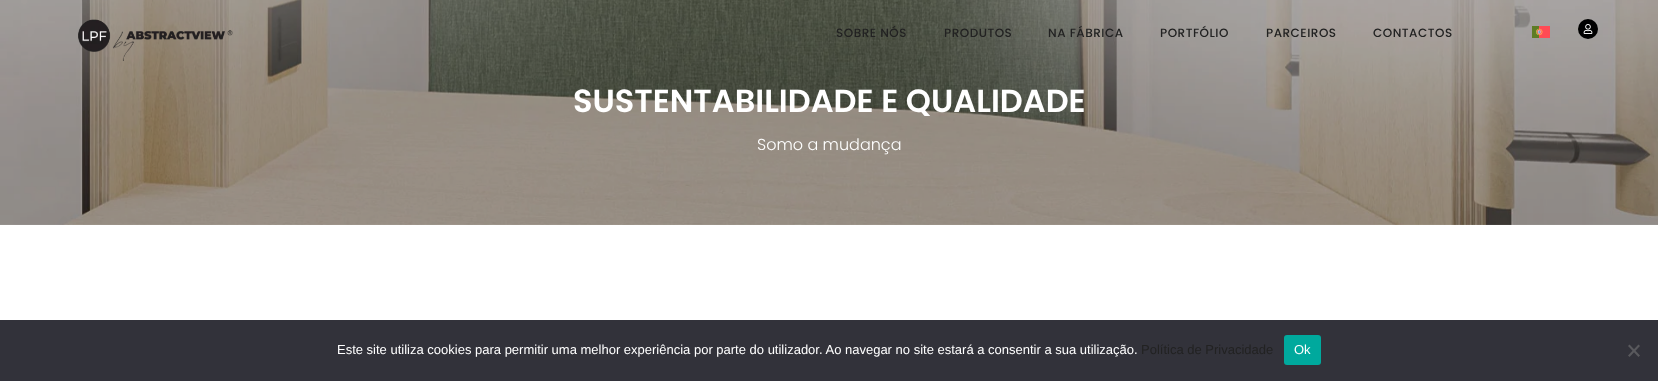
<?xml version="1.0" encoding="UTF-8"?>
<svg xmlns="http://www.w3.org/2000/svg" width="1658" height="381">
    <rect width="100%" height="100%" fill="#FFFFFF"/>
    <image x="0" y="0" width="1658" height="225" href="img_04.png"/>
    <image x="78" y="19" width="155" height="42" href="img_01.png"/>
    <text x="836" y="37" font-family="Poppins" font-size="12" font-weight="500" letter-spacing="0.5" fill="#222222">SOBRE NÓS</text>
    <text x="944" y="37" font-family="Poppins" font-size="12" font-weight="500" letter-spacing="0.5" fill="#222222">PRODUTOS</text>
    <text x="1048" y="37" font-family="Poppins" font-size="12" font-weight="500" letter-spacing="0.5" fill="#222222">NA FÁBRICA</text>
    <text x="1160" y="37" font-family="Poppins" font-size="12" font-weight="500" letter-spacing="0.5" fill="#222222">PORTFÓLIO</text>
    <text x="1266" y="37" font-family="Poppins" font-size="12" font-weight="500" letter-spacing="0.5" fill="#222222">PARCEIROS</text>
    <text x="1373" y="37" font-family="Poppins" font-size="12" font-weight="500" letter-spacing="0.5" fill="#222222">CONTACTOS</text>
    <image x="1532" y="26" width="18" height="12" href="img_02.png"/>
    <circle cx="1588" cy="29" r="10" fill="#000000"/>
    <image x="1583" y="24" width="10" height="10" href="img_03.png"/>
    <text x="573" y="112" font-family="Poppins" font-size="32" font-weight="600" fill="#FFFFFF">SUSTENTABILIDADE E QUALIDADE</text>
    <text x="757" y="150" font-family="Poppins" font-size="16" font-weight="300" fill="#FFFFFF">Somo a mudança</text>
    <rect x="0" y="320" width="1658" height="61" fill="#32323A"/>
    <text x="337" y="354" font-family="Liberation Sans" font-size="13" fill="#FFFFFF">Este site utiliza cookies para permitir uma melhor experiência por parte do utilizador. Ao navegar no site estará a consentir a sua utilização.</text>
    <text x="1141" y="354" font-family="Liberation Sans" font-size="13" fill="#222222">Política de Privacidade</text>
    <rect x="1284" y="335" width="37" height="30" rx="3" fill="#00A99D"/>
    <text x="1294" y="354" font-family="Liberation Sans" font-size="13" fill="#FFFFFF">Ok</text>
    <path d="M 1638.5 344.5 L 1640 346 L 1629.5 357 L 1628 355.5 Z" fill="#59595D"/>
    <path d="M 1628 346 L 1629.5 344.5 L 1640 355.5 L 1638.5 357 Z" fill="#59595D"/>
</svg>
